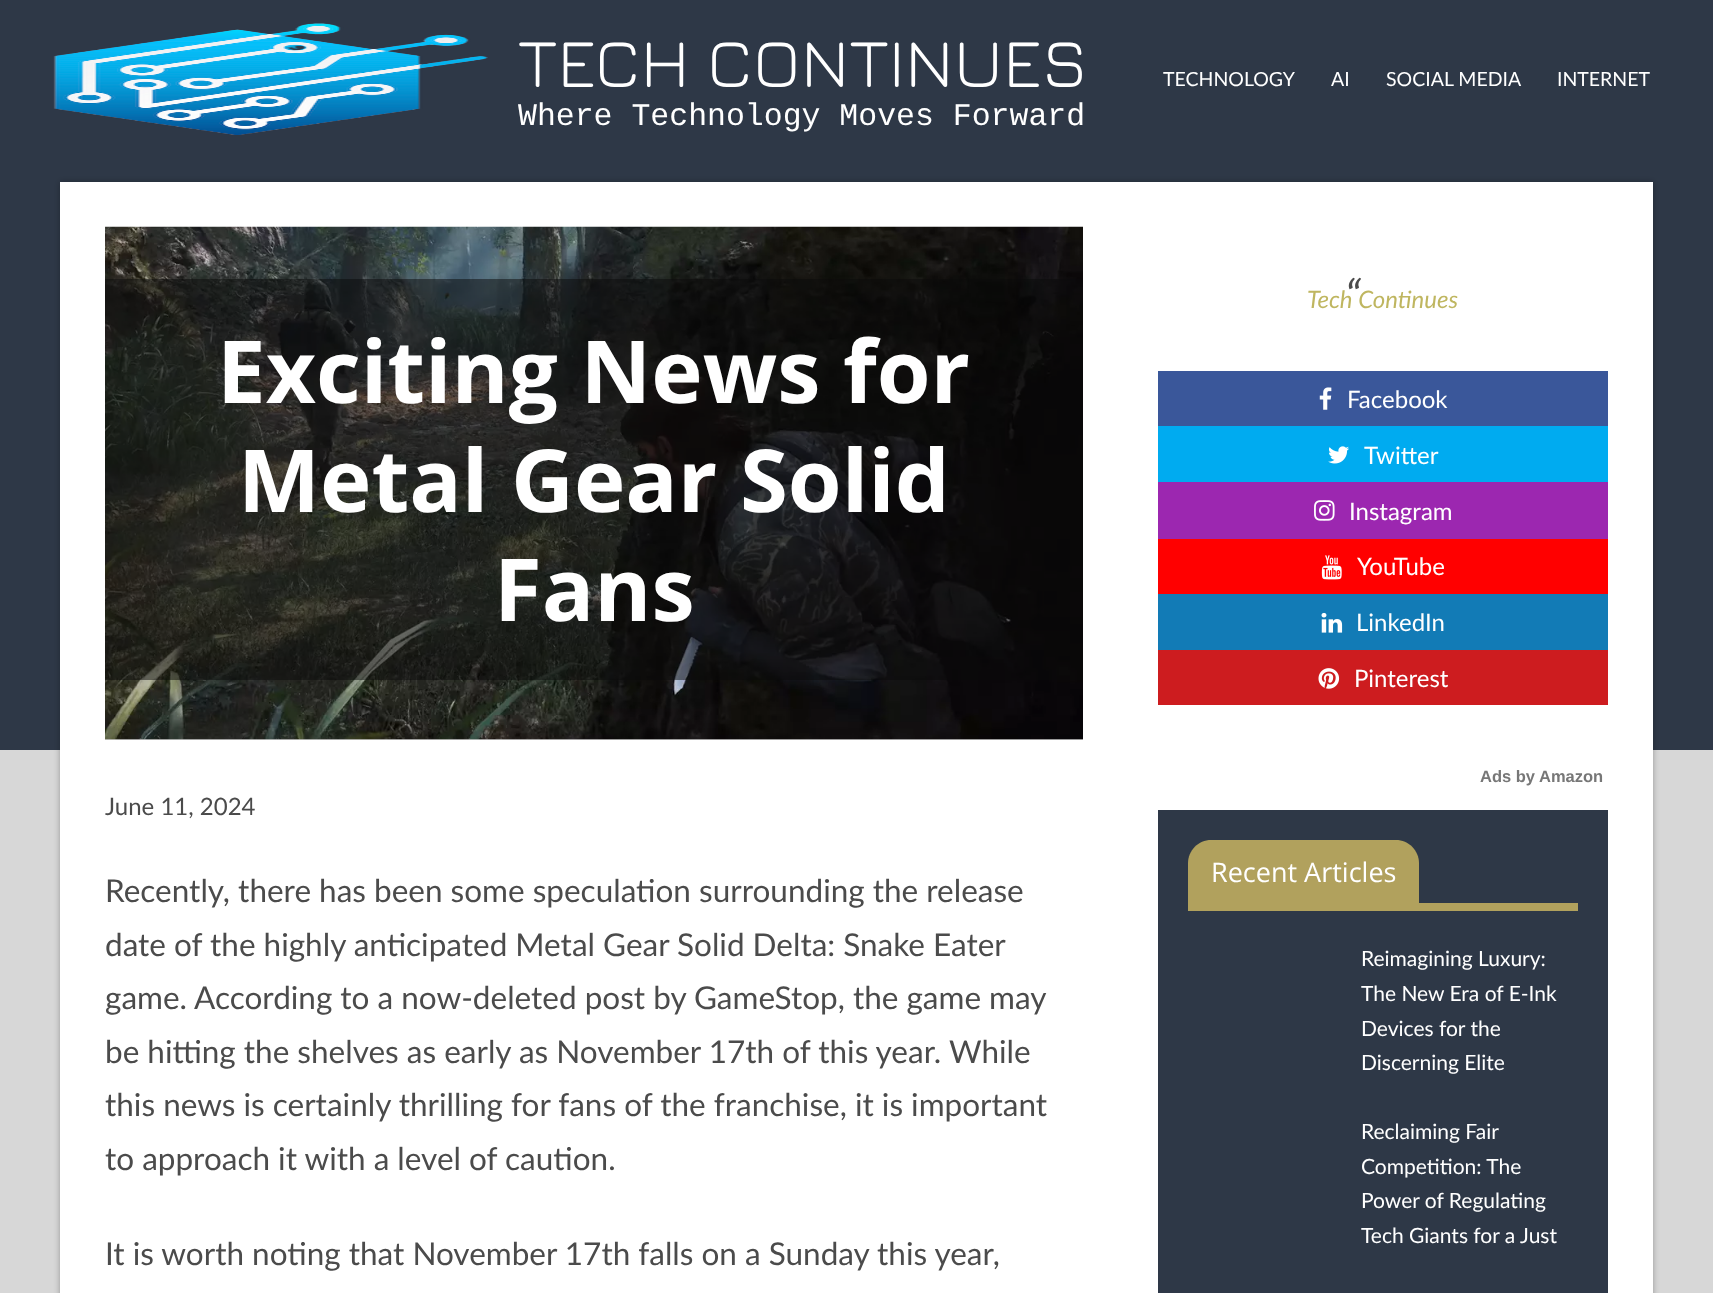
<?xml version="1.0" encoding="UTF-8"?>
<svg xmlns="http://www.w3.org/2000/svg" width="1713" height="1293">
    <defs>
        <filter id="blur1" x="-50%" y="-200%" width="200%" height="500%"><feGaussianBlur stdDeviation="3"/></filter>
    </defs>
    <rect width="100%" height="100%" fill="#D7D7D7"/>
    <rect x="0" y="0" width="1713" height="750" fill="#2E3847"/>
    <image x="53" y="23" width="435" height="112" href="img_01.png"/>
    <text x="518" y="87" font-family="Jura" font-size="69" fill="#FFFFFF">TECH CONTINUES</text>
    <text x="518" y="125" font-family="Liberation Mono" font-size="31.5" fill="#FFFFFF">Where Technology Moves Forward</text>
    <text x="1163" y="86" font-family="Lato" font-size="19.5" fill="#FFFFFF">TECHNOLOGY</text>
    <text x="1331" y="86" font-family="Lato" font-size="19.5" fill="#FFFFFF">AI</text>
    <text x="1386" y="86" font-family="Lato" font-size="19.5" fill="#FFFFFF">SOCIAL MEDIA</text>
    <text x="1557" y="86" font-family="Lato" font-size="19.5" fill="#FFFFFF">INTERNET</text>
    <rect x="60" y="182" width="1593" height="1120" fill="#000000" fill-opacity="0.3" filter="url(#blur1)"/>
    <rect x="60" y="182" width="1593" height="1111" fill="#FFFFFF"/>
    <rect x="105" y="739" width="978" height="1" fill="#CCCCCC"/>
    <image x="105" y="226" width="978" height="514" href="img_02.png"/>
    <rect x="105" y="279" width="978" height="401" fill="#0A0A0A" fill-opacity="0.5"/>
    <text x="217" y="403" font-family="Open Sans" font-size="87" font-weight="700" fill="#FFFFFF">Exciting News for</text>
    <text x="238" y="512" font-family="Open Sans" font-size="87" font-weight="700" fill="#FFFFFF">Metal Gear Solid</text>
    <text x="494" y="621" font-family="Open Sans" font-size="87" font-weight="700" fill="#FFFFFF">Fans</text>
    <text x="105" y="815" font-family="Lato" font-size="24" fill="#4B4B4B">June 11, 2024</text>
    <text font-family="Lato" font-size="31.5" fill="#4B4B4B">
        <tspan x="105" y="902">Recently, there has been some speculation surrounding the release</tspan>
        <tspan x="105" y="956">date of the highly anticipated Metal Gear Solid Delta: Snake Eater</tspan>
        <tspan x="105" y="1009">game. According to a now-deleted post by GameStop, the game may</tspan>
        <tspan x="105" y="1063">be hitting the shelves as early as November 17th of this year. While</tspan>
        <tspan x="105" y="1116">this news is certainly thrilling for fans of the franchise, it is important</tspan>
        <tspan x="105" y="1170">to approach it with a level of caution.</tspan>
    </text>
    <text x="105" y="1265" font-family="Lato" font-size="31.5" fill="#4B4B4B">It is worth noting that November 17th falls on a Sunday this year,</text>
    <text x="1345" y="312" font-family="Lato" font-size="45" font-style="italic" fill="#4B4B4B">“</text>
    <text x="1307" y="308" font-family="Lato" font-size="24" font-style="italic" fill="#BFB660">Tech Continues</text>
    <rect x="1158" y="371" width="450" height="55" fill="#3A579A"/>
    <image x="1319" y="387" width="13" height="23" href="img_03.png"/>
    <text x="1347" y="408" font-family="Lato" font-size="24" fill="#FFFFFF">Facebook</text>
    <rect x="1158" y="426" width="450" height="56" fill="#00ABF0"/>
    <image x="1328" y="446" width="21" height="18" href="img_04.png"/>
    <text x="1364" y="464" font-family="Lato" font-size="24" fill="#FFFFFF">Twitter</text>
    <rect x="1158" y="482" width="450" height="57" fill="#9C27B0"/>
    <image x="1314" y="500" width="21" height="21" href="img_05.png"/>
    <text x="1349" y="520" font-family="Lato" font-size="24" fill="#FFFFFF">Instagram</text>
    <rect x="1158" y="539" width="450" height="55" fill="#FF0000"/>
    <image x="1321" y="555" width="21" height="25" href="img_06.png"/>
    <text x="1357" y="575" font-family="Lato" font-size="24" fill="#FFFFFF">YouTube</text>
    <rect x="1158" y="594" width="450" height="56" fill="#127BB6"/>
    <image x="1321" y="612" width="22" height="21" href="img_07.png"/>
    <text x="1356" y="631" font-family="Lato" font-size="24" fill="#FFFFFF">LinkedIn</text>
    <rect x="1158" y="650" width="450" height="55" fill="#CD1C1F"/>
    <image x="1318" y="668" width="22" height="21" href="img_08.png"/>
    <text x="1354" y="687" font-family="Lato" font-size="24" fill="#FFFFFF">Pinterest</text>
    <text x="1480" y="782" font-family="Liberation Sans" font-size="16.5" font-weight="700" fill="#777777">Ads by Amazon</text>
    <rect x="1158" y="810" width="450" height="483" fill="#2E3847"/>
    <rect x="1188" y="903" width="390" height="8" fill="#B1A15D"/>
    <path d="M 1211 840 H 1396 C 1408.5 840 1419 850.5 1419 863 V 903 H 1188 V 863 C 1188 850.5 1198.5 840 1211 840 Z" fill="#B1A15D"/>
    <text x="1211" y="882" font-family="Open Sans" font-size="27" fill="#FFFFFF">Recent Articles</text>
    <text font-family="Lato" font-size="21" fill="#FFFFFF">
        <tspan x="1361" y="966">Reimagining Luxury:</tspan>
        <tspan x="1361" y="1001">The New Era of E-Ink</tspan>
        <tspan x="1361" y="1036">Devices for the</tspan>
        <tspan x="1361" y="1070">Discerning Elite</tspan>
    </text>
    <text font-family="Lato" font-size="21" fill="#FFFFFF">
        <tspan x="1361" y="1139">Reclaiming Fair</tspan>
        <tspan x="1361" y="1174">Competition: The</tspan>
        <tspan x="1361" y="1208">Power of Regulating</tspan>
        <tspan x="1361" y="1243">Tech Giants for a Just</tspan>
    </text>
</svg>
